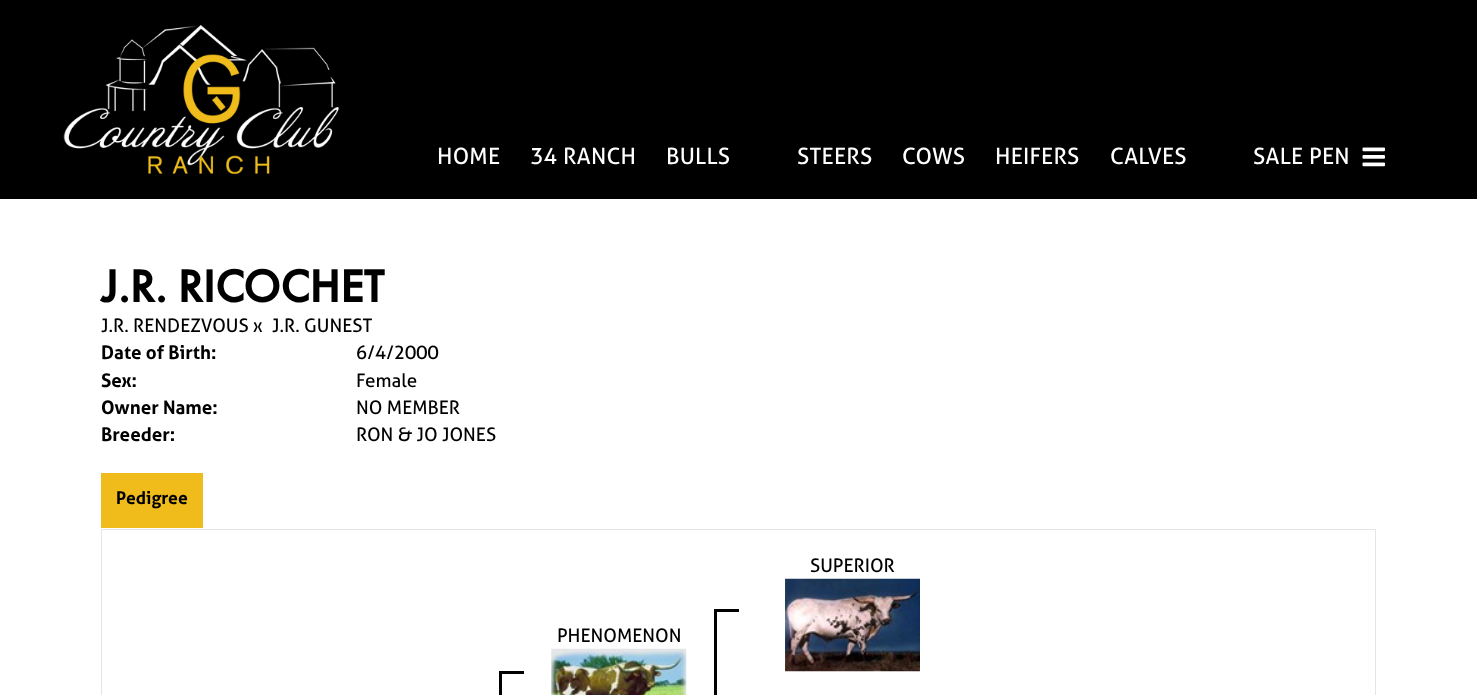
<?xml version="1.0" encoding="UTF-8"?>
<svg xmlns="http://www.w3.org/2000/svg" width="1477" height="695">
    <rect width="100%" height="100%" fill="#FFFFFF"/>
    <rect x="0" y="0" width="1477" height="199" fill="#000000"/>
    <image x="63" y="25" width="276" height="149" href="img_01.png"/>
    <text x="437" y="164" font-family="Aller" font-size="22.5" letter-spacing="0.25" fill="#FFFFFF">HOME</text>
    <text x="530" y="164" font-family="Aller" font-size="22.5" letter-spacing="0.25" fill="#FFFFFF">34 RANCH</text>
    <text x="666" y="164" font-family="Aller" font-size="22.5" letter-spacing="0.25" fill="#FFFFFF">BULLS</text>
    <text x="797" y="164" font-family="Aller" font-size="22.5" letter-spacing="0.25" fill="#FFFFFF">STEERS</text>
    <text x="902" y="164" font-family="Aller" font-size="22.5" letter-spacing="0.25" fill="#FFFFFF">COWS</text>
    <text x="995" y="164" font-family="Aller" font-size="22.5" letter-spacing="0.25" fill="#FFFFFF">HEIFERS</text>
    <text x="1110" y="164" font-family="Aller" font-size="22.5" letter-spacing="0.25" fill="#FFFFFF">CALVES</text>
    <text x="1253" y="164" font-family="Aller" font-size="22.5" letter-spacing="0.25" fill="#FFFFFF">SALE PEN</text>
    <image x="1362" y="147" width="23" height="20" href="img_02.png"/>
    <text x="101" y="302" font-family="Futura PT" font-size="47" font-weight="700" fill="#000000">J.R. RICOCHET</text>
    <text x="101" y="332" font-family="Aller" font-size="18.75" fill="#000000">J.R. RENDEZVOUS x</text>
    <text x="272" y="332" font-family="Aller" font-size="18.75" fill="#000000">J.R. GUNEST</text>
    <text x="101" y="359" font-family="Aller" font-size="18.75" font-weight="700" fill="#000000">Date of Birth:</text>
    <text x="356" y="359" font-family="Aller" font-size="18.75" fill="#000000">6/4/2000</text>
    <text x="101" y="387" font-family="Aller" font-size="18.75" font-weight="700" fill="#000000">Sex:</text>
    <text x="356" y="387" font-family="Aller" font-size="18.75" fill="#000000">Female</text>
    <text x="101" y="414" font-family="Aller" font-size="18.75" font-weight="700" fill="#000000">Owner Name:</text>
    <text x="356" y="414" font-family="Aller" font-size="18.75" fill="#000000">NO MEMBER</text>
    <text x="101" y="441" font-family="Aller" font-size="18.75" font-weight="700" fill="#000000">Breeder:</text>
    <text x="356" y="441" font-family="Aller" font-size="18.75" fill="#000000">RON &amp; JO JONES</text>
    <rect x="101" y="529" width="1275" height="1" fill="#E5E5E5"/>
    <rect x="101" y="473" width="102" height="55" fill="#EFBC1B"/>
    <text x="116" y="504" font-family="Aller" font-size="17.5" font-weight="700" fill="#000000">Pedigree</text>
    <path d="M 1376 530 H 1375 V 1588 L 1376 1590 V 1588 Z" fill="#E5E5E5"/>
    <path d="M 102 530 V 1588 V 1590 L 101 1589 V 530 Z" fill="#E5E5E5"/>
    <text x="810" y="572" font-family="Aller" font-size="18.75" fill="#000000">SUPERIOR</text>
    <image x="785" y="578" width="135" height="94" href="img_03.png"/>
    <text x="557" y="642" font-family="Aller" font-size="18.75" fill="#000000">PHENOMENON</text>
    <image x="551" y="648" width="136" height="47" href="img_04.png"/>
    <rect x="714" y="609" width="25" height="3" fill="#000000"/>
    <rect x="714" y="609" width="3" height="86" fill="#000000"/>
    <rect x="499" y="671" width="25" height="3" fill="#000000"/>
    <rect x="499" y="671" width="3" height="24" fill="#000000"/>
</svg>
